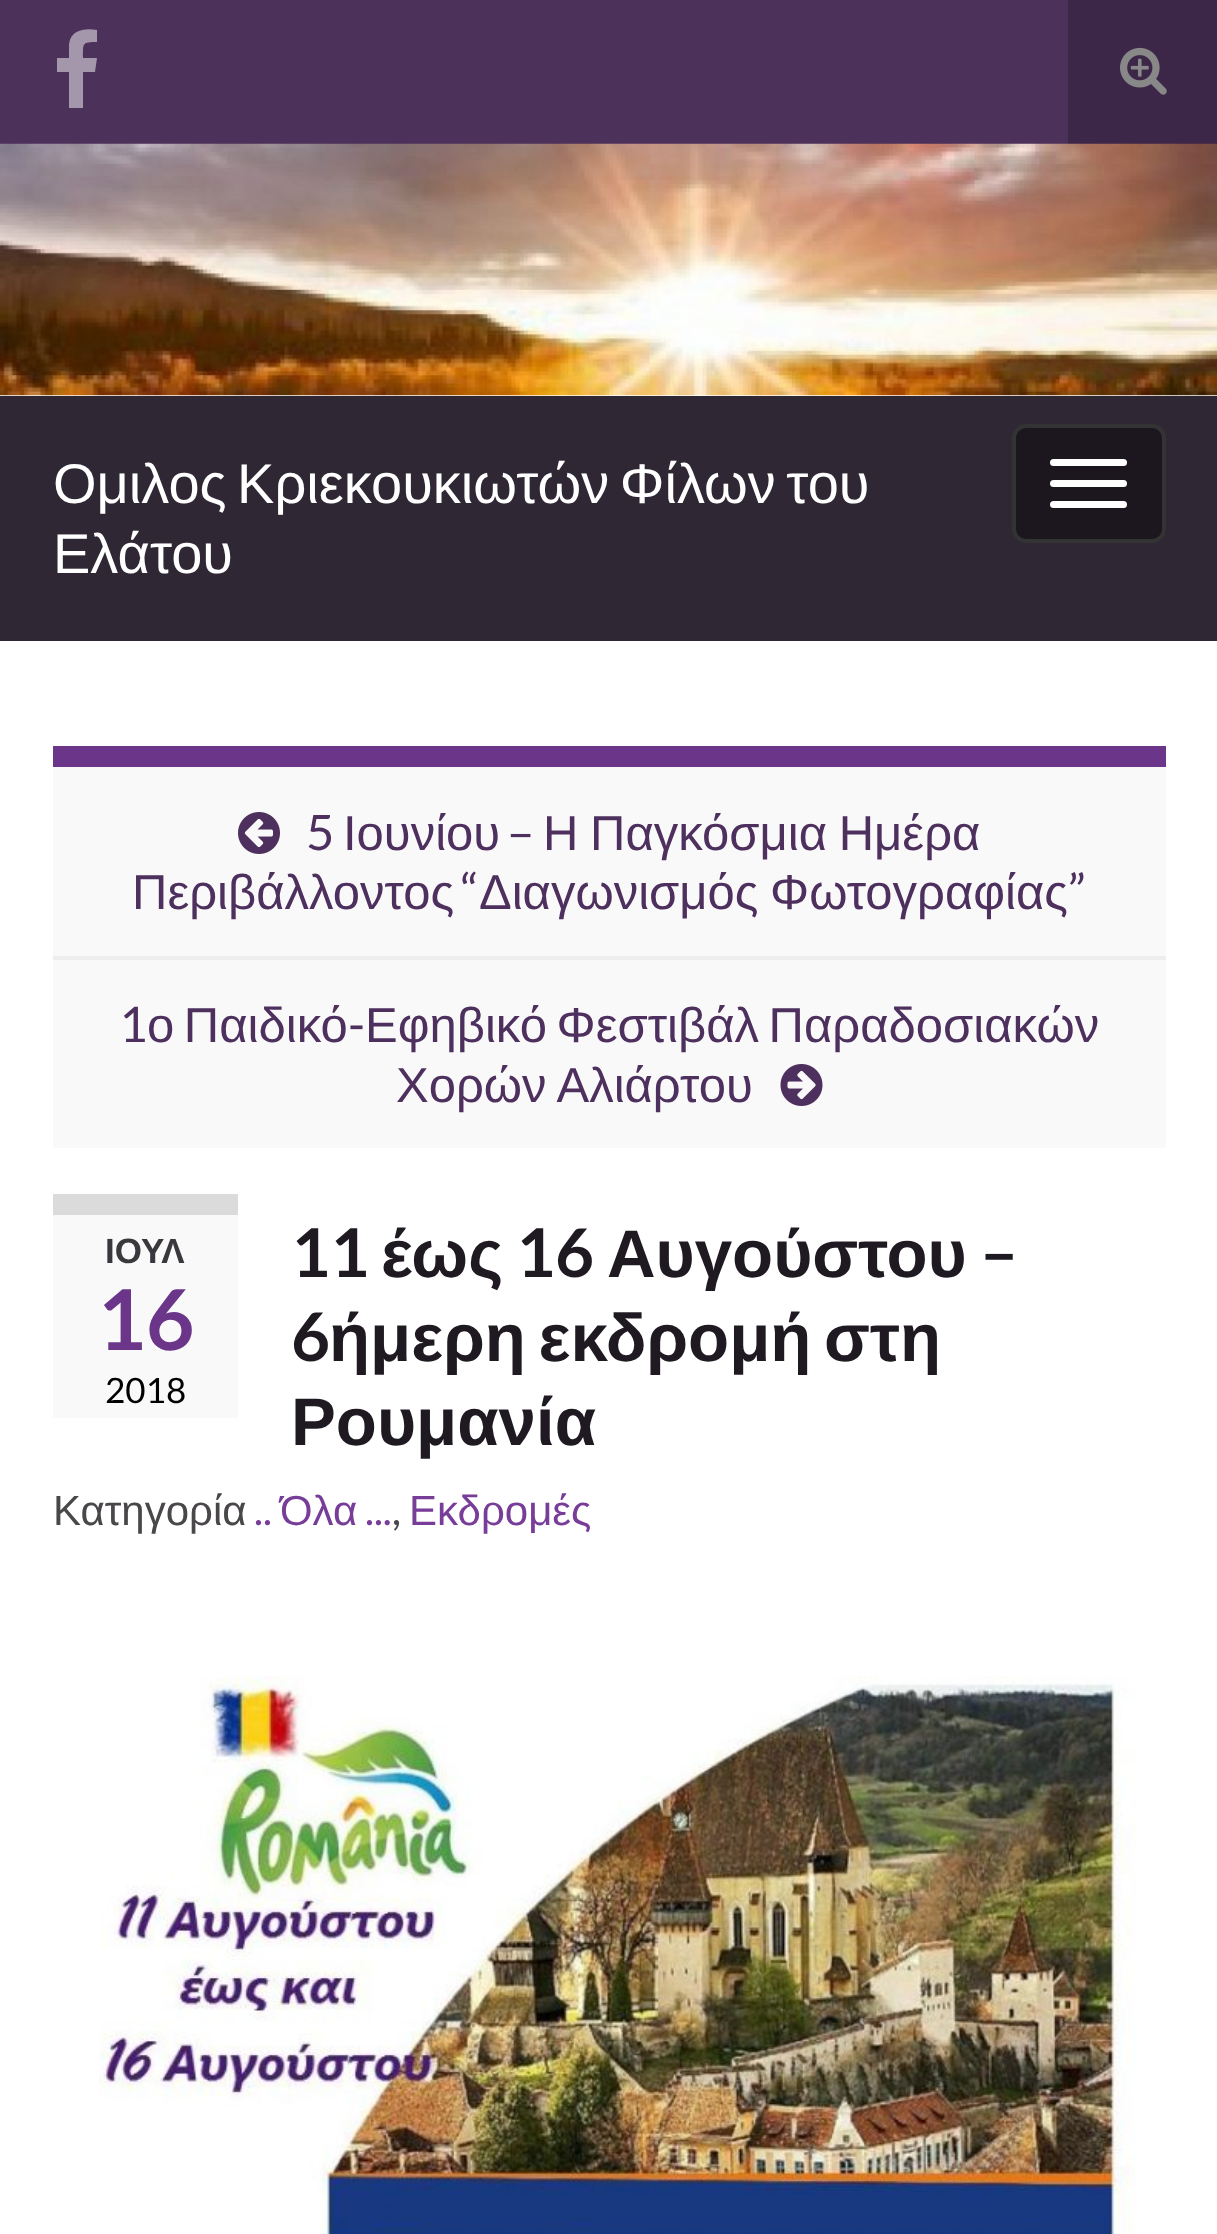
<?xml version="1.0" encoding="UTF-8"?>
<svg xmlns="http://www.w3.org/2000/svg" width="1217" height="2234">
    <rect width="100%" height="100%" fill="#4C315A"/>
    <path d="M 97 30 V 42 C 82 42 83 43 83 58 H 97 L 95 72 H 83 V 108 H 69 V 72 H 57 V 58 H 69 V 44 C 71 29 86 28 97 30 Z" fill="#A496AB"/>
    <rect x="1068" y="0" width="149" height="144" fill="#3D2748"/>
    <image x="1120" y="47" width="47" height="48" href="img_01.png"/>
    <rect x="0" y="395" width="1217" height="1" fill="#FFFFFF"/>
    <image x="0" y="143" width="1217" height="253" href="img_02.png"/>
    <rect x="0" y="396" width="1217" height="245" fill="#2F2733"/>
    <text font-family="Liberation Sans" font-size="56" fill="#FFFFFF">
        <tspan x="53" y="503" word-spacing="-5">Ομιλος Κριεκουκιωτών Φίλων του</tspan>
        <tspan x="53" y="573">Ελάτου</tspan>
    </text>
    <rect x="1014" y="426" width="150" height="115" rx="12" fill="#1C171F" stroke="#333333" stroke-width="4"/>
    <rect x="1050" y="459" width="77" height="7" rx="3.5" fill="#FFFFFF"/>
    <rect x="1050" y="480" width="77" height="7" rx="3.5" fill="#FFFFFF"/>
    <rect x="1050" y="501" width="77" height="7" rx="3.5" fill="#FFFFFF"/>
    <rect x="0" y="641" width="1217" height="1593" fill="#FFFFFF"/>
    <rect x="53" y="767" width="1113" height="381" fill="#F9F9F9"/>
    <rect x="53" y="746" width="1113" height="21" fill="#6B3589"/>
    <image x="238" y="812" width="42" height="42" href="img_03.png"/>
    <text x="306" y="850" font-family="Lato" font-size="49" fill="#4E305E">5</text>
    <text x="343" y="850" font-family="Liberation Sans" font-size="49" fill="#4E305E">Ιουνίου</text>
    <text x="507" y="850" font-family="Lato" font-size="49" fill="#4E305E">–</text>
    <text x="543" y="850" word-spacing="-2" font-family="Liberation Sans" font-size="49" fill="#4E305E">Η Παγκόσμια Ημέρα</text>
    <text x="132" y="909" font-family="Liberation Sans" font-size="49" fill="#4E305E">Περιβάλλοντος</text>
    <text x="461" y="909" font-family="Lato" font-size="49" fill="#4E305E">“</text>
    <text x="479" y="909" word-spacing="-2" font-family="Liberation Sans" font-size="49" fill="#4E305E">Διαγωνισμός Φωτογραφίας</text>
    <text x="1068" y="909" font-family="Lato" font-size="49" fill="#4E305E">”</text>
    <rect x="53" y="956" width="1113" height="4" fill="#EEEEEE"/>
    <text x="119" y="1042" font-family="Lato" font-size="49" fill="#4E305E">1</text>
    <text x="147" y="1042" word-spacing="-4" font-family="Liberation Sans" font-size="49" fill="#4E305E">ο Παιδικό</text>
    <text x="348" y="1042" font-family="Lato" font-size="49" fill="#4E305E">-</text>
    <text x="365" y="1042" word-spacing="-4" font-family="Liberation Sans" font-size="49" fill="#4E305E">Εφηβικό Φεστιβάλ Παραδοσιακών</text>
    <text x="396" y="1102" word-spacing="-1" font-family="Liberation Sans" font-size="49" fill="#4E305E">Χορών Αλιάρτου</text>
    <image x="780" y="1064" width="43" height="42" href="img_04.png"/>
    <rect x="53" y="1215" width="185" height="203" fill="#F9F9F9"/>
    <rect x="53" y="1194" width="185" height="21" fill="#DBDBDB"/>
    <text x="105" y="1263" font-family="Liberation Sans" font-size="35" font-weight="700" fill="#3B383D">ΙΟΥΛ</text>
    <text x="97" y="1350" font-family="Lato" font-size="84" font-weight="700" fill="#6B3589">16</text>
    <text x="105" y="1403" font-family="Lato" font-size="35" fill="#000000">2018</text>
    <text x="291" y="1277" font-family="Lato" font-size="67.25" font-weight="700" fill="#1F1A22">11</text>
    <text x="381" y="1277" font-family="Liberation Sans" font-size="67.25" font-weight="700" fill="#1F1A22">έως</text>
    <text x="516" y="1277" font-family="Lato" font-size="67.25" font-weight="700" fill="#1F1A22">16</text>
    <text x="607" y="1277" font-family="Liberation Sans" font-size="67.25" font-weight="700" fill="#1F1A22">Αυγούστου</text>
    <text x="980" y="1277" font-family="Lato" font-size="67.25" font-weight="700" fill="#1F1A22">–</text>
    <text x="291" y="1361" font-family="Lato" font-size="67.25" font-weight="700" fill="#1F1A22">6</text>
    <text x="329" y="1361" word-spacing="-6" font-family="Liberation Sans" font-size="67.25" font-weight="700" fill="#1F1A22">ήμερη εκδρομή στη</text>
    <text x="291" y="1445" font-family="Liberation Sans" font-size="67.25" font-weight="700" fill="#1F1A22">Ρουμανία</text>
    <text x="53" y="1525" font-family="Liberation Sans" font-size="42" fill="#4A474B">Κατηγορία</text>
    <text x="254" y="1525" font-family="Lato" font-size="42" fill="#783D98">..</text>
    <text x="280" y="1525" font-family="Liberation Sans" font-size="42" fill="#783D98">Όλα</text>
    <text x="365" y="1525" font-family="Lato" font-size="42" fill="#783D98">...</text>
    <text x="392" y="1525" font-family="Lato" font-size="42" fill="#4A474B">,</text>
    <text x="409" y="1525" font-family="Liberation Sans" font-size="42" fill="#783D98">Εκδρομές</text>
    <image x="99" y="1676" width="1037" height="558" href="img_05.png"/>
</svg>
